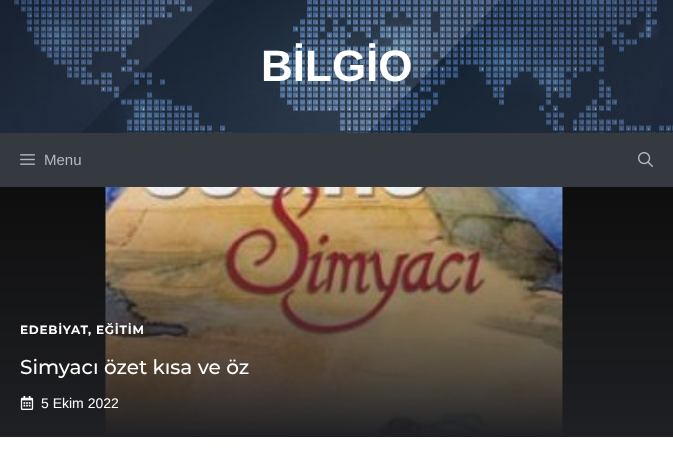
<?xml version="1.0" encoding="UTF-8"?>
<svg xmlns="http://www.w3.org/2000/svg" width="673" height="459">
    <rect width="100%" height="100%" fill="#FFFFFF"/>
    <image x="0" y="0" width="673" height="133" href="img_01.png"/>
    <text x="261" y="81" font-family="Liberation Sans" font-size="44" font-weight="700" fill="#FFFFFF">BİLGİO</text>
    <rect x="0" y="133" width="673" height="54" fill="#343A40"/>
    <image x="20" y="154" width="15" height="11" href="img_02.png"/>
    <text x="44" y="165" font-family="Liberation Sans" font-size="15" fill="#B5B7BF">Menu</text>
    <image x="638" y="152" width="15" height="15" href="img_03.png"/>
    <image x="0" y="187" width="673" height="250" href="img_04.png"/>
    <text x="20" y="334" font-family="Montserrat" font-size="12" font-weight="700" letter-spacing="0.75" fill="#FFFFFF">EDEBİYAT</text>
    <text x="88" y="334" font-family="Montserrat" font-size="12" font-weight="700" letter-spacing="0.75" fill="#FFFFFF">, EĞİTİM</text>
    <text x="20" y="374" font-family="Montserrat" font-size="20" font-weight="500" fill="#FFFFFF">Simyacı özet kısa ve öz</text>
    <image x="20" y="396" width="14" height="14" href="img_05.png"/>
    <text x="41" y="408" font-family="Liberation Sans" font-size="14" fill="#FFFFFF">5 Ekim 2022</text>
</svg>
